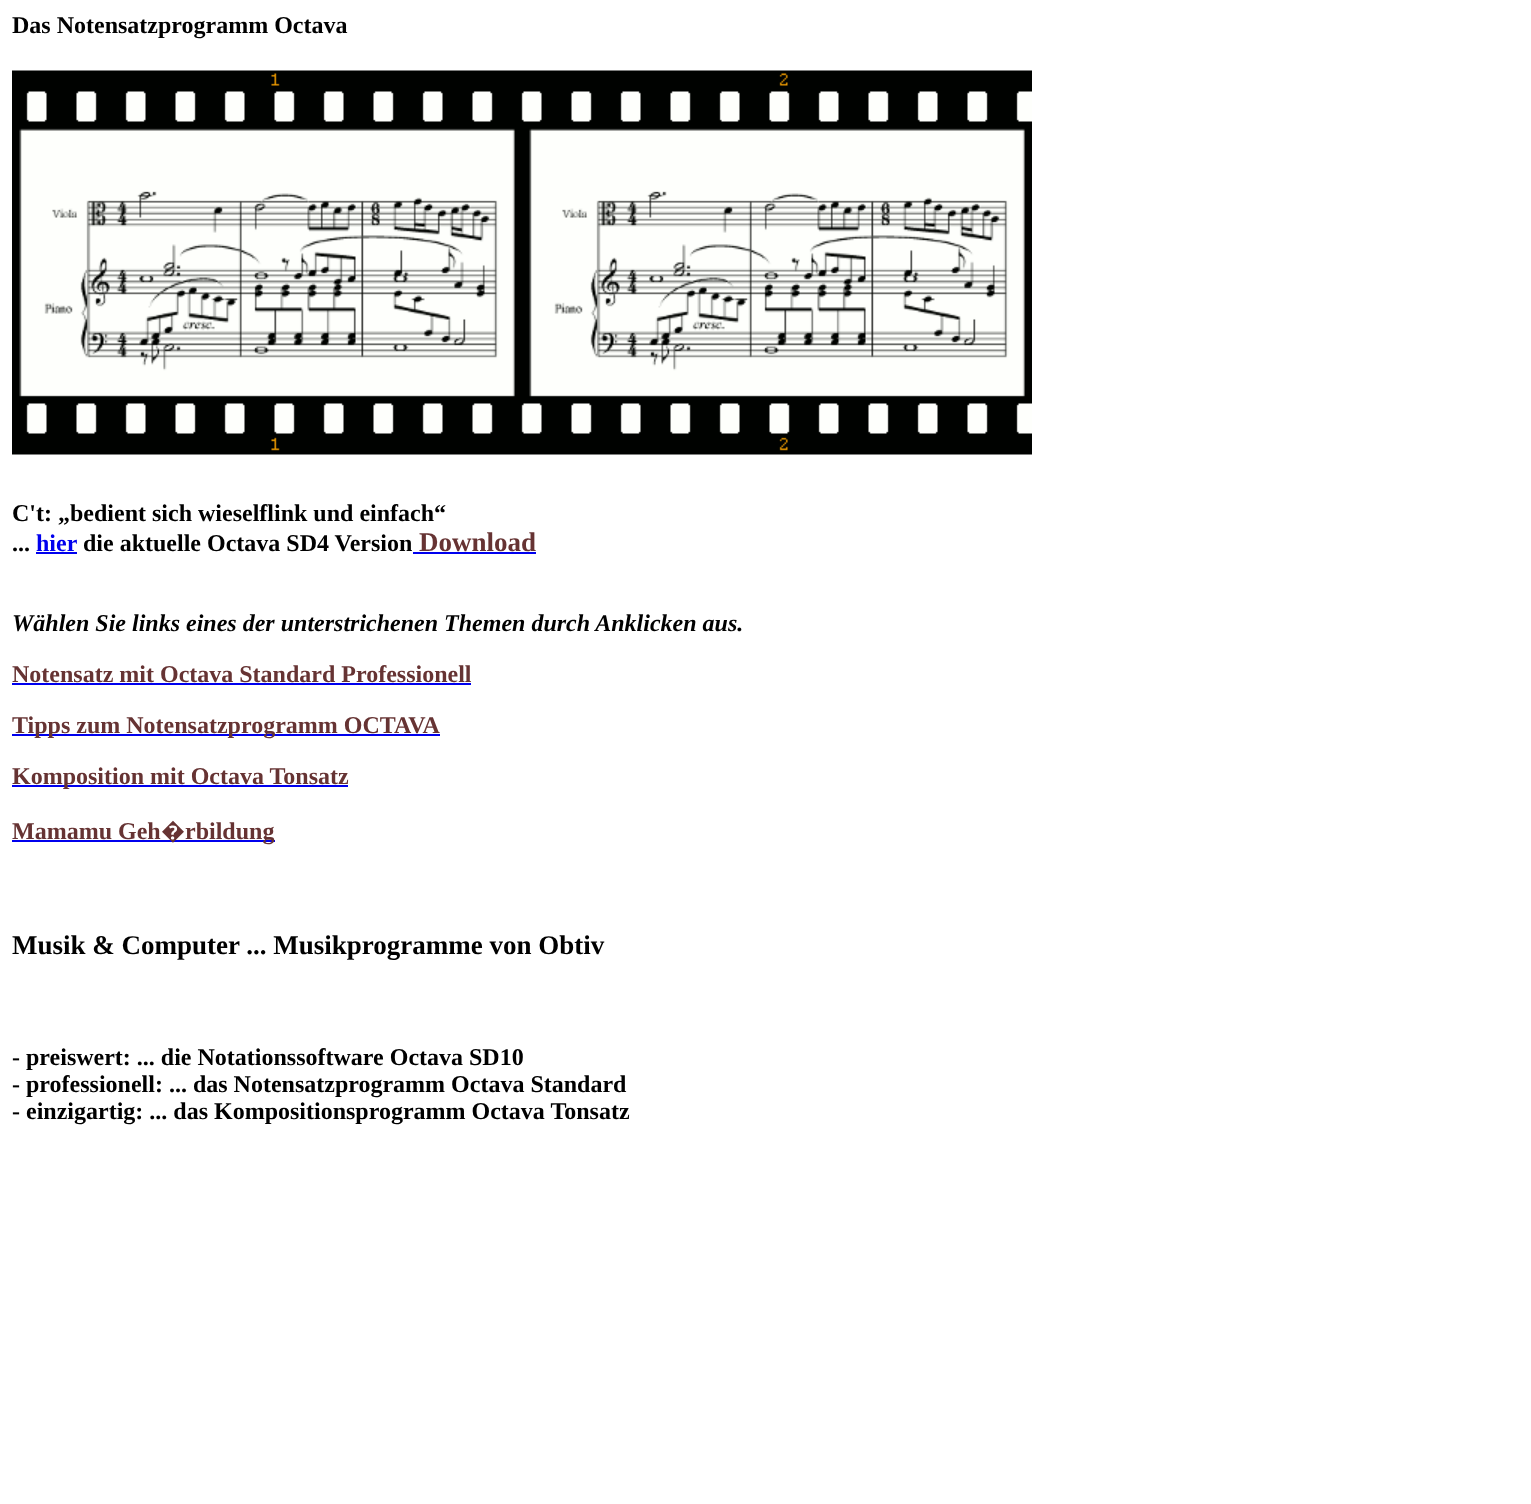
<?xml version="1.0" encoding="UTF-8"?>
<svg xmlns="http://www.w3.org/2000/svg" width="1531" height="1504">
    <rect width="100%" height="100%" fill="#FFFFFF"/>
    <text x="12" y="33" font-family="Liberation Serif" font-size="24" font-weight="700" fill="#000000">Das Notensatzprogramm Octava</text>
    <image x="12" y="70" width="1020" height="385" href="img_01.png"/>
    <text font-family="Liberation Serif" font-size="24" font-weight="700" fill="#000000">
        <tspan x="12" y="521">C't: „bedient sich wieselflink und einfach“</tspan>
        <tspan x="12" y="551">...</tspan>
    </text>
    <rect x="36" y="552" width="41" height="2" fill="#0000EE"/>
    <text x="36" y="551" font-family="Liberation Serif" font-size="24" font-weight="700" fill="#0000EE">hier</text>
    <text x="83" y="551" font-family="Liberation Serif" font-size="24" font-weight="700" fill="#000000">die aktuelle Octava SD4 Version</text>
    <rect x="413" y="552" width="123" height="2" fill="#0000EE"/>
    <text x="419" y="551" font-family="Liberation Serif" font-size="27" font-weight="700" fill="#663333">Download</text>
    <text x="12" y="631" font-family="Liberation Serif" font-size="24" font-weight="700" font-style="italic" fill="#000000">Wählen Sie links eines der unterstrichenen Themen durch Anklicken aus.</text>
    <text x="12" y="682" font-family="Liberation Serif" font-size="24" font-weight="700" fill="#663333">Notensatz mit Octava Standard Professionell</text>
    <rect x="12" y="683" width="459" height="2" fill="#0000EE"/>
    <rect x="12" y="734" width="428" height="2" fill="#0000EE"/>
    <text x="12" y="733" font-family="Liberation Serif" font-size="24" font-weight="700" fill="#663333">Tipps zum Notensatzprogramm OCTAVA</text>
    <rect x="12" y="785" width="336" height="2" fill="#0000EE"/>
    <text x="12" y="784" font-family="Liberation Serif" font-size="24" font-weight="700" fill="#663333">Komposition mit Octava Tonsatz</text>
    <text x="12" y="839" font-family="Liberation Serif" font-size="24" font-weight="700" fill="#663333">Mamamu Geh</text>
    <rect x="12" y="840" width="263" height="2" fill="#0000EE"/>
    <text x="161" y="839" font-family="Noto Sans" font-size="24" font-weight="700" fill="#663333">�</text>
    <text x="185" y="839" font-family="Liberation Serif" font-size="24" font-weight="700" fill="#663333">rbildung</text>
    <text x="12" y="954" font-family="Liberation Serif" font-size="27" font-weight="700" fill="#000000">Musik &amp; Computer ... Musikprogramme von Obtiv</text>
    <text font-family="Liberation Serif" font-size="24" font-weight="700" fill="#000000">
        <tspan x="12" y="1065">- preiswert: ... die Notationssoftware Octava SD10</tspan>
        <tspan x="12" y="1092">- professionell: ... das Notensatzprogramm Octava Standard</tspan>
        <tspan x="12" y="1119">- einzigartig: ... das Kompositionsprogramm Octava Tonsatz</tspan>
    </text>
</svg>
